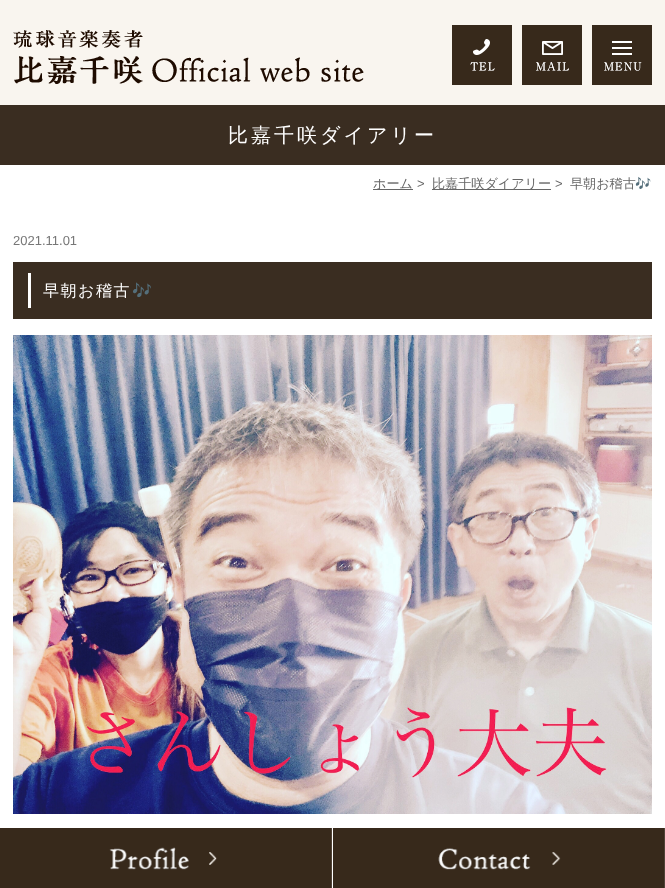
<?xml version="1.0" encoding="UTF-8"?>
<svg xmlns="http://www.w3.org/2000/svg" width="665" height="888">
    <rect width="100%" height="100%" fill="#FFFFFF"/>
    <rect x="0" y="0" width="665" height="105" fill="#F9F5EF"/>
    <image x="13" y="30" width="351" height="54" href="img_01.png"/>
    <image x="452" y="25" width="60" height="60" href="img_02.png"/>
    <image x="522" y="25" width="60" height="60" href="img_03.png"/>
    <image x="592" y="25" width="60" height="60" href="img_04.png"/>
    <rect x="0" y="105" width="665" height="60" fill="#3A2D21"/>
    <text x="228" y="142" font-family="WenQuanYi Zen Hei" font-size="20" font-weight="500" letter-spacing="3" fill="#FFFFFF">比嘉千咲ダイアリー</text>
    <rect x="373" y="189" width="40" height="1" fill="#666666"/>
    <text x="373" y="188" font-family="WenQuanYi Zen Hei" font-size="13.1" font-weight="500" fill="#666666">ホーム</text>
    <text x="417" y="188" font-family="Liberation Sans" font-size="13.1" fill="#666666">&gt;</text>
    <rect x="432" y="189" width="119" height="1" fill="#666666"/>
    <text x="432" y="188" font-family="WenQuanYi Zen Hei" font-size="13.1" font-weight="500" fill="#666666">比嘉千咲ダイアリー</text>
    <text x="555" y="188" font-family="Liberation Sans" font-size="13.1" fill="#666666">&gt;</text>
    <text x="570" y="188" font-family="WenQuanYi Zen Hei" font-size="13.1" font-weight="500" fill="#666666">早朝お稽古</text>
    <text x="635" y="188" font-family="Noto Color Emoji" font-size="13.1" fill="#666666">🎶</text>
    <text x="13" y="245" font-family="Liberation Sans" font-size="13" fill="#777777">2021.11.01</text>
    <rect x="13" y="262" width="639" height="57" fill="#3A2D21"/>
    <rect x="28" y="273" width="3" height="35" fill="#FFFFFF"/>
    <text x="43" y="296" font-family="WenQuanYi Zen Hei" font-size="16" font-weight="500" letter-spacing="1.5" fill="#FFFFFF">早朝お稽古</text>
    <text x="132" y="296" font-family="Noto Color Emoji" font-size="16" letter-spacing="1.5" fill="#FFFFFF">🎶</text>
    <image x="13" y="335" width="639" height="479" href="img_05.png"/>
    <image x="0" y="828" width="332" height="60" href="img_06.png"/>
    <image x="333" y="828" width="332" height="60" href="img_07.png"/>
</svg>
